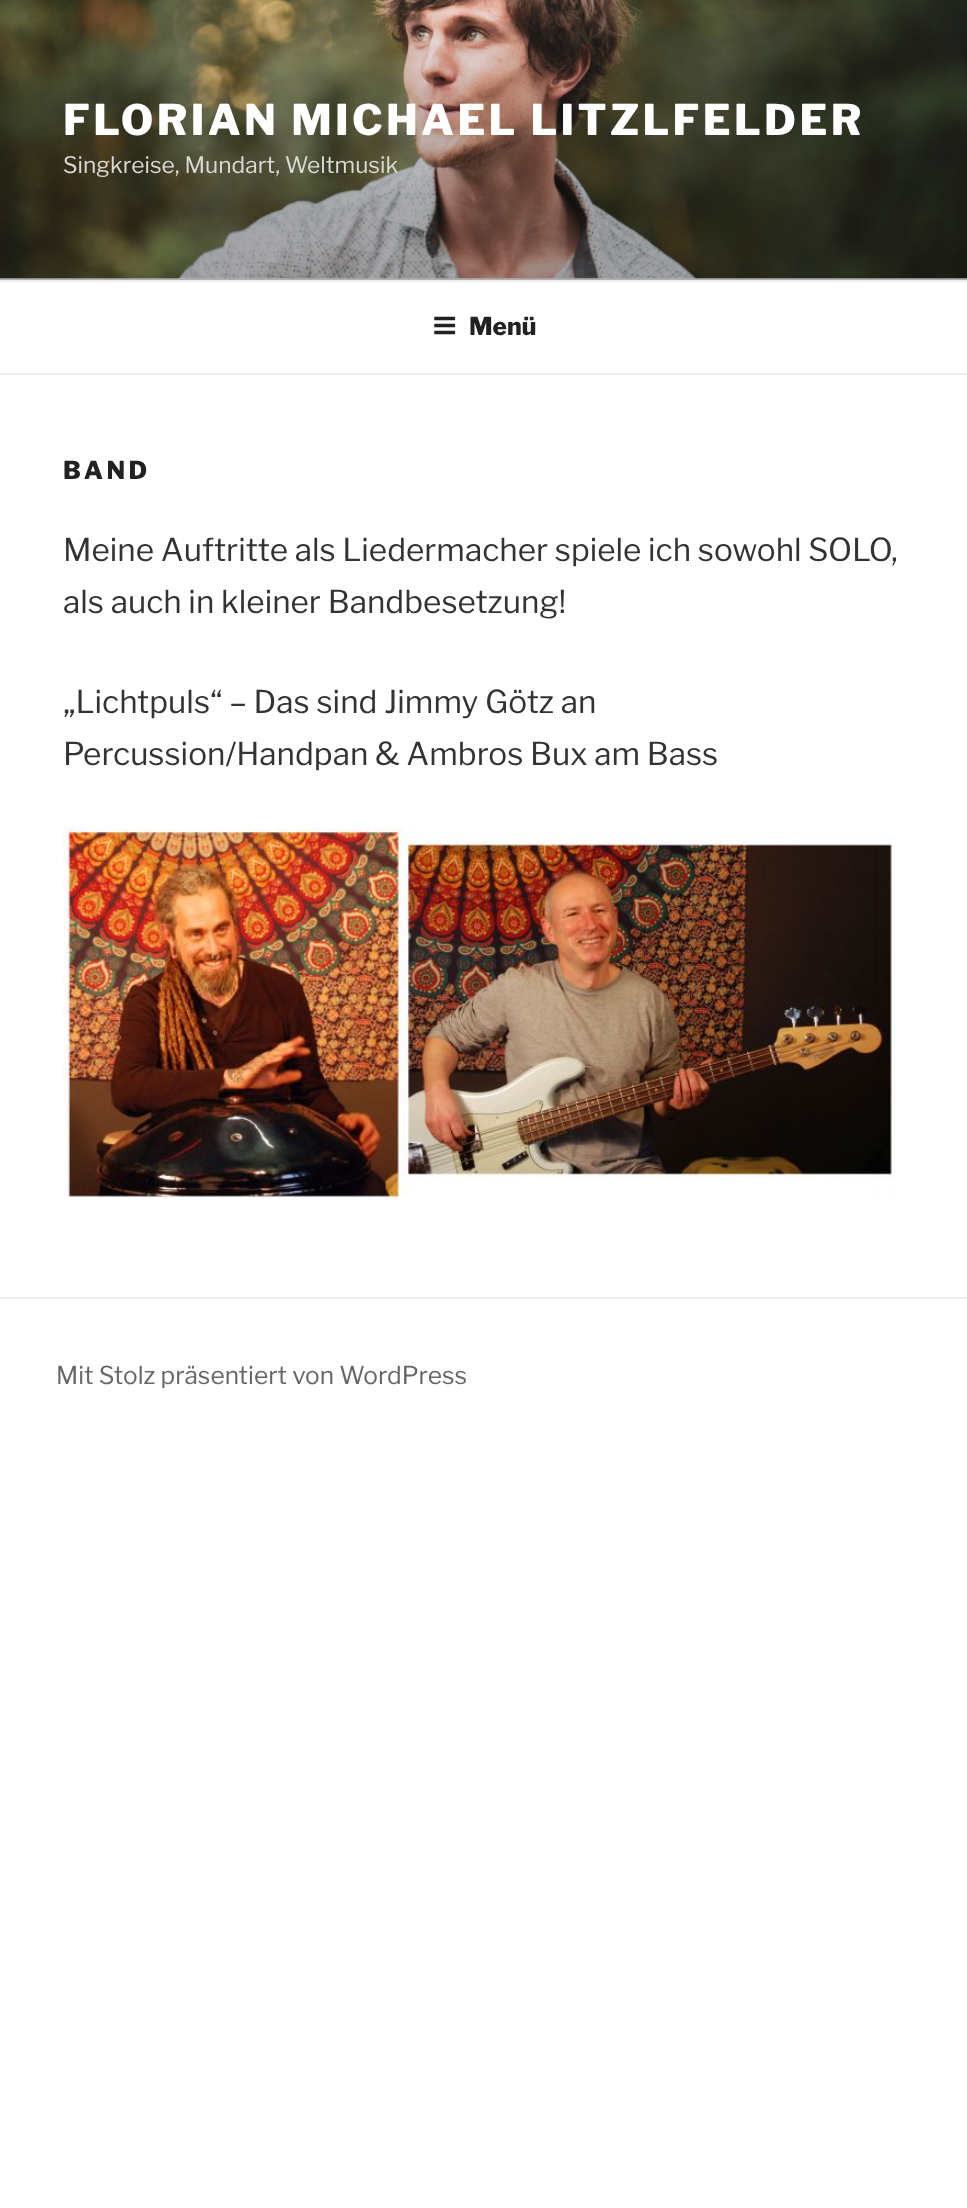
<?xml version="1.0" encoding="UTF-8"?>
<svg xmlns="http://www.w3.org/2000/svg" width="967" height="2208">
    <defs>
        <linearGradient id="g1" gradientUnits="userSpaceOnUse" x1="484" y1="0" x2="484" y2="280"><stop offset="0" stop-color="#000000" stop-opacity="0"/><stop offset="0.75" stop-color="#000000" stop-opacity="0.3"/><stop offset="1" stop-color="#000000" stop-opacity="0.3"/></linearGradient>
    </defs>
    <rect width="100%" height="100%" fill="#FFFFFF"/>
    <rect x="0" y="278" width="967" height="2" fill="#FAFAFA"/>
    <image x="0" y="0" width="967" height="279" href="img_01.png"/>
    <rect x="0" y="15" width="967" height="265" fill="url(#g1)"/>
    <text x="63" y="135" font-family="Libre Franklin" font-size="42" font-weight="100" letter-spacing="3.35" fill="#FFFFFF">FLORIAN MICHAEL LITZLFELDER</text>
    <text x="63" y="173" font-family="'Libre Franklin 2'" font-size="22.75" font-weight="100" fill="#DADAD5">Singkreise, Mundart, Weltmusik</text>
    <rect x="0" y="280" width="967" height="2" fill="#EEEEEE"/>
    <rect x="0" y="373" width="967" height="2" fill="#EEEEEE"/>
    <image x="434" y="316" width="22" height="19" href="img_02.png"/>
    <text x="469" y="335" font-family="Libre Franklin" font-size="24.5" font-weight="100" fill="#222222">Menü</text>
    <text x="63" y="479" font-family="Libre Franklin" font-size="24.5" font-weight="100" letter-spacing="3.5" fill="#222222">BAND</text>
    <text font-family="'Libre Franklin 2'" font-size="31.5" font-weight="100" fill="#333333">
        <tspan x="63" y="561">Meine Auftritte als Liedermacher spiele ich sowohl SOLO,</tspan>
        <tspan x="63" y="613">als auch in kleiner Bandbesetzung!</tspan>
    </text>
    <text font-family="'Libre Franklin 2'" font-size="31.5" font-weight="100" fill="#333333">
        <tspan x="63" y="713">„Lichtpuls“ – Das sind Jimmy Götz an</tspan>
        <tspan x="63" y="765">Percussion/Handpan &amp; Ambros Bux am Bass</tspan>
    </text>
    <image x="63" y="827" width="833" height="371" href="img_03.png"/>
    <rect x="0" y="1297" width="967" height="2" fill="#EEEEEE"/>
    <text x="56" y="1384" font-family="'Libre Franklin 2'" font-size="24.5" font-weight="100" fill="#666666">Mit Stolz präsentiert von WordPress</text>
</svg>
